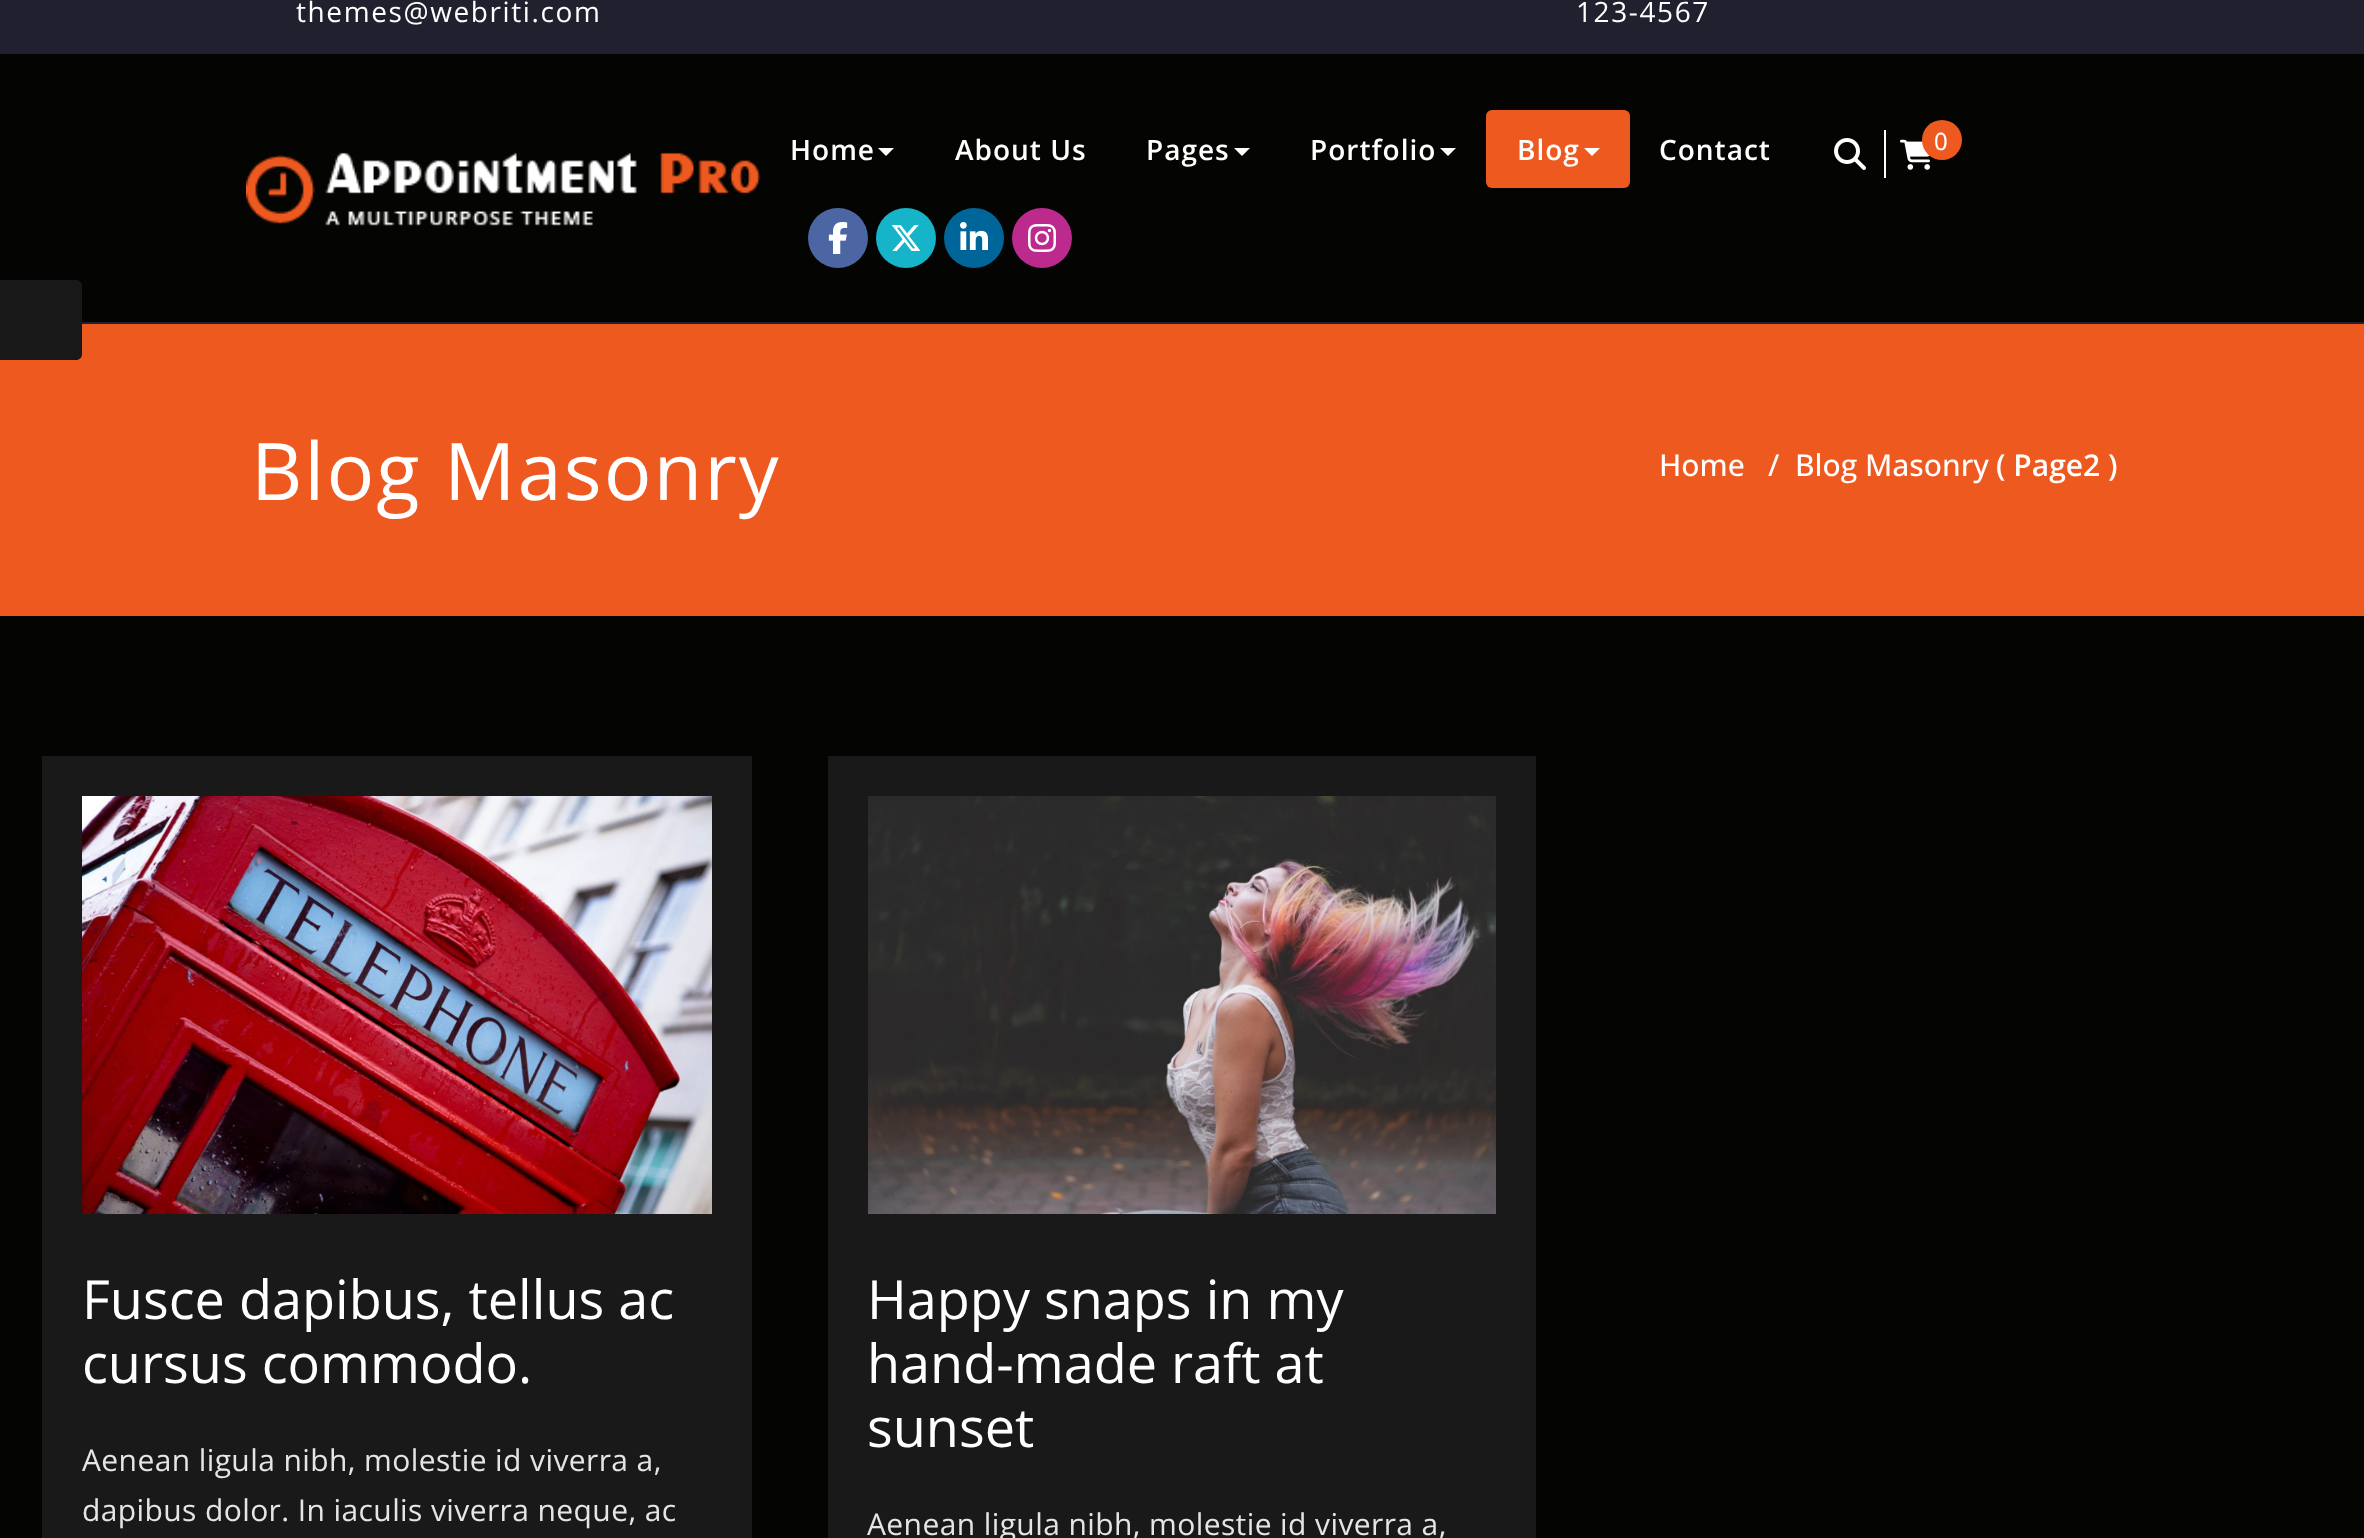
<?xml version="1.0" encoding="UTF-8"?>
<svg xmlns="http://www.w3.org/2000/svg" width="2364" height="1538">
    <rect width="100%" height="100%" fill="#040402"/>
    <rect x="0" y="324" width="2364" height="292" fill="#EE591F"/>
    <path d="M -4 280 H 76 C 79.5 280 82 282.5 82 286 V 354 C 82 357.5 79.5 360 76 360 H -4 Z" fill="#181818"/>
    <rect x="0" y="0" width="2364" height="54" fill="#21202E"/>
    <text x="296" y="22" font-family="Open Sans" font-size="28" letter-spacing="1.6" fill="#FFFFFF">themes@webriti.com</text>
    <text x="1576" y="22" font-family="Open Sans" font-size="28" letter-spacing="1.6" fill="#FFFFFF">123-4567</text>
    <image x="246" y="152" width="514" height="74" href="img_01.png"/>
    <text x="790" y="160" font-family="Open Sans" font-size="28" font-weight="600" letter-spacing="1" fill="#FFFFFF">Home</text>
    <path d="M 878 148 H 894 L 886 156 Z" fill="#FFFFFF"/>
    <text x="955" y="160" font-family="Open Sans" font-size="28" font-weight="600" letter-spacing="1" fill="#FFFFFF">About Us</text>
    <text x="1146" y="160" font-family="Open Sans" font-size="28" font-weight="600" letter-spacing="1" fill="#FFFFFF">Pages</text>
    <path d="M 1234 148 H 1250 L 1242 156 Z" fill="#FFFFFF"/>
    <text x="1310" y="160" font-family="Open Sans" font-size="28" font-weight="600" letter-spacing="1" fill="#FFFFFF">Portfolio</text>
    <path d="M 1440 148 H 1456 L 1448 156 Z" fill="#FFFFFF"/>
    <rect x="1486" y="110" width="144" height="78" rx="6" fill="#EE591F"/>
    <text x="1517" y="160" font-family="Open Sans" font-size="28" font-weight="600" letter-spacing="1" fill="#FFFFFF">Blog</text>
    <path d="M 1584 148 H 1600 L 1592 156 Z" fill="#FFFFFF"/>
    <text x="1659" y="160" font-family="Open Sans" font-size="28" font-weight="600" letter-spacing="1" fill="#FFFFFF">Contact</text>
    <image x="1834" y="138" width="32" height="32" href="img_02.png"/>
    <rect x="1884" y="130" width="2" height="48" fill="#FFFFFF"/>
    <image x="1900" y="139" width="30" height="31" href="img_03.png"/>
    <circle cx="1942" cy="140" r="20" fill="#EE591F"/>
    <text x="1934" y="150" font-family="Noto Sans" font-size="24" fill="#FFFFFF">0</text>
    <circle cx="838" cy="238" r="30" fill="#4C66A4"/>
    <image x="828" y="222" width="20" height="32" href="img_04.png"/>
    <circle cx="906" cy="238" r="30" fill="#15B4C9"/>
    <image x="891" y="225" width="30" height="26" href="img_05.png"/>
    <circle cx="974" cy="238" r="30" fill="#006599"/>
    <image x="960" y="222" width="28" height="28" href="img_06.png"/>
    <circle cx="1042" cy="238" r="30" fill="#BC2A8D"/>
    <image x="1028" y="224" width="28" height="28" href="img_07.png"/>
    <rect x="82" y="322" width="2282" height="2" fill="#21202E"/>
    <text x="251" y="500" font-family="Open Sans" font-size="79.5" letter-spacing="2" fill="#FFFFFF">Blog Masonry</text>
    <text x="1659" y="476" font-family="Open Sans" font-size="30" font-weight="500" fill="#FFFFFF">Home</text>
    <text x="1768" y="476" font-family="Open Sans" font-size="30" font-weight="500" fill="#FFFFFF">/</text>
    <text x="1795" y="476" font-family="Open Sans" font-size="30" font-weight="500" fill="#FFFFFF">Blog Masonry</text>
    <text x="1996" y="476" font-family="Open Sans" font-size="30" font-weight="600" fill="#FFFFFF">( Page2 )</text>
    <rect x="42" y="756" width="710" height="782" fill="#191919"/>
    <image x="82" y="796" width="630" height="418" href="img_08.png"/>
    <text font-family="Open Sans" font-size="54" fill="#FFFFFF">
        <tspan x="82" y="1319">Fusce dapibus, tellus ac</tspan>
        <tspan x="82" y="1383">cursus commodo.</tspan>
    </text>
    <text font-family="Open Sans" font-size="30" letter-spacing="0.4" fill="#E5E5E5">
        <tspan x="82" y="1471">Aenean ligula nibh, molestie id viverra a,</tspan>
        <tspan x="82" y="1521">dapibus dolor. In iaculis viverra neque, ac</tspan>
    </text>
    <rect x="828" y="756" width="708" height="782" fill="#191919"/>
    <image x="868" y="796" width="628" height="418" href="img_09.png"/>
    <text font-family="Open Sans" font-size="54" fill="#FFFFFF">
        <tspan x="867" y="1319">Happy snaps in my</tspan>
        <tspan x="867" y="1383">hand-made raft at</tspan>
        <tspan x="867" y="1447">sunset</tspan>
    </text>
    <text x="867" y="1535" font-family="Open Sans" font-size="30" letter-spacing="0.4" fill="#E5E5E5">Aenean ligula nibh, molestie id viverra a,</text>
</svg>
